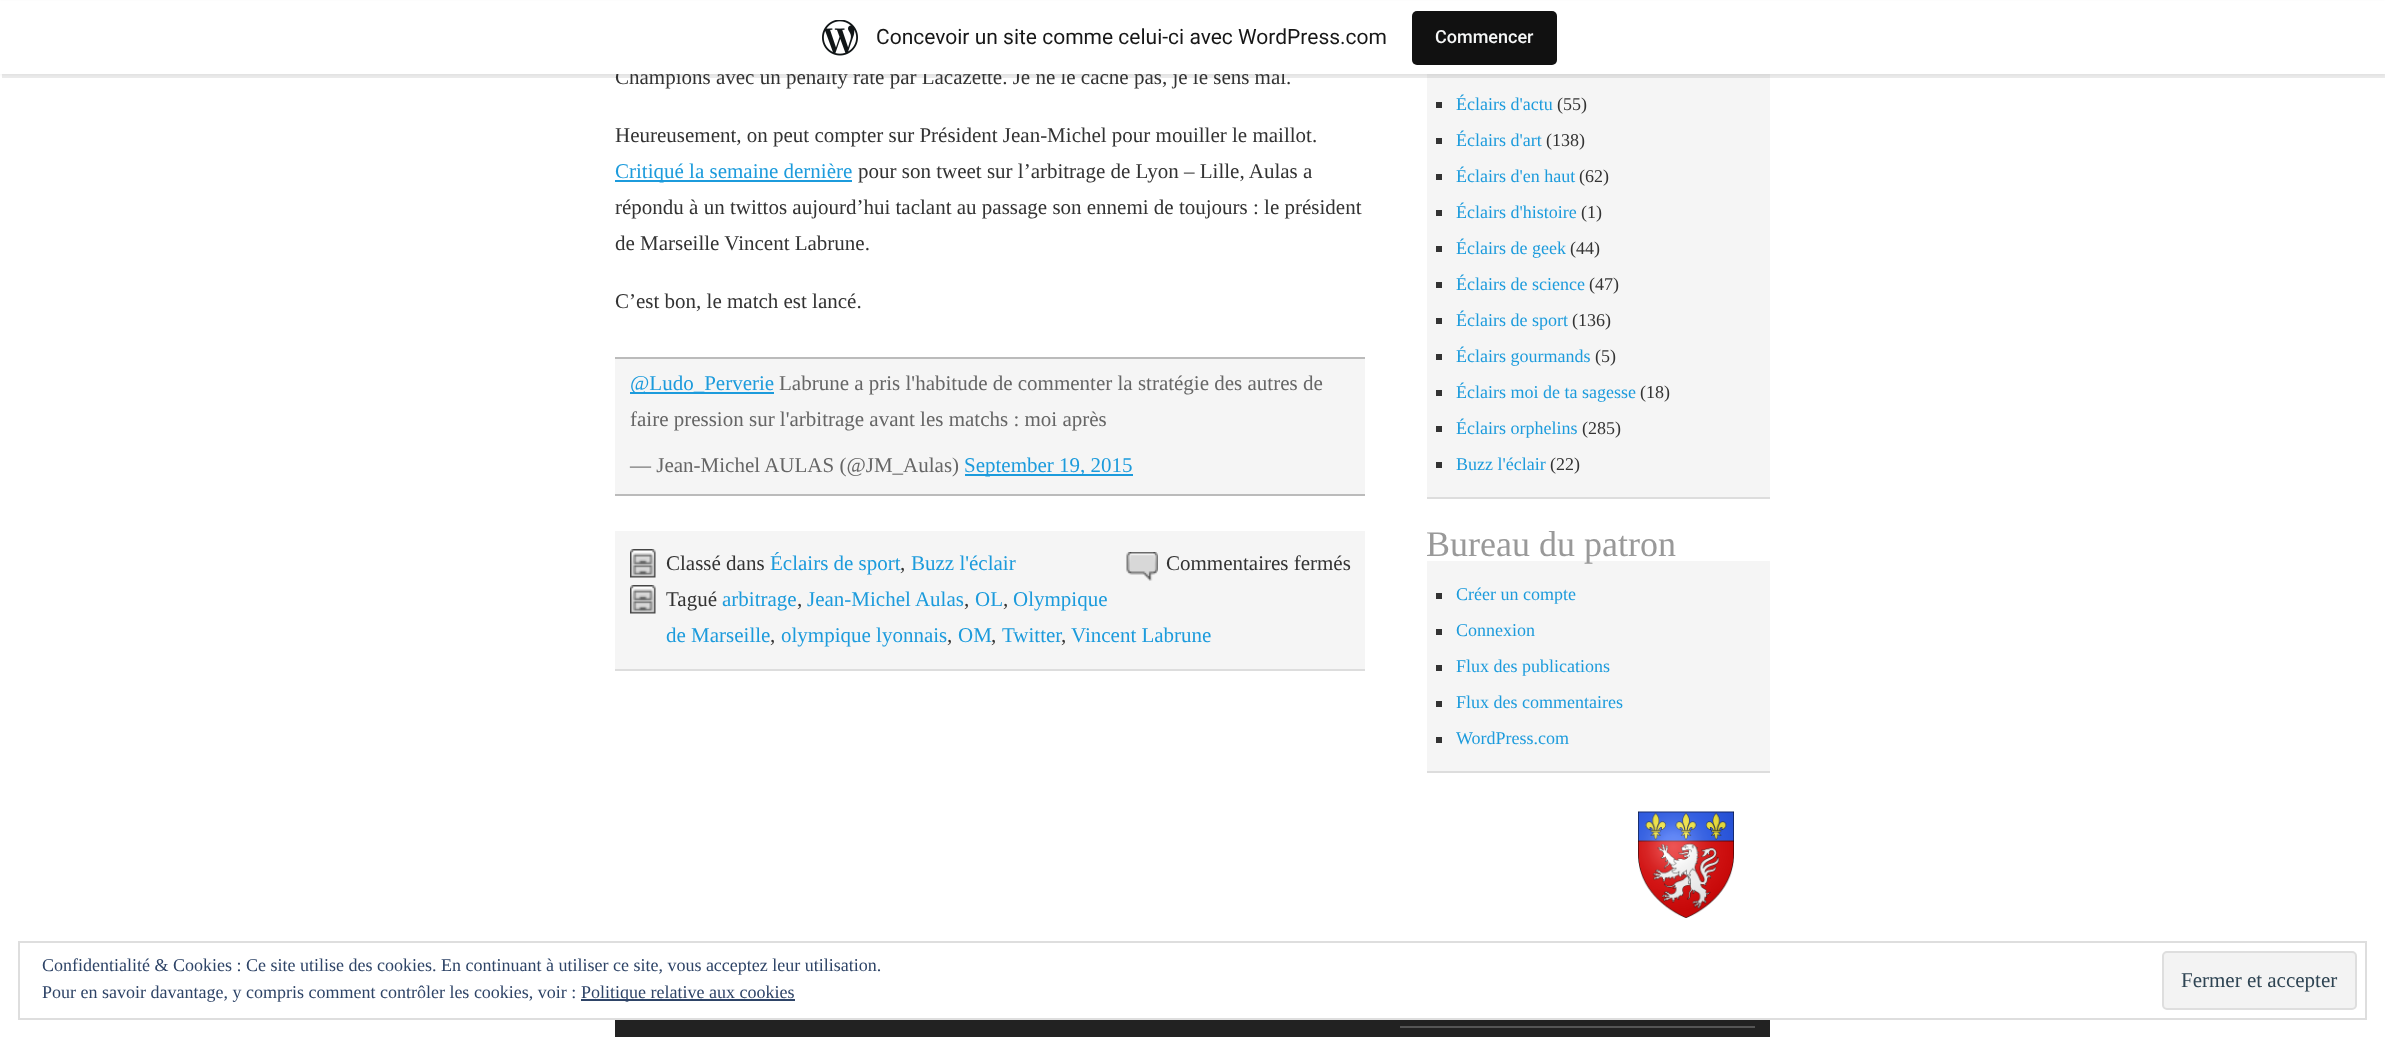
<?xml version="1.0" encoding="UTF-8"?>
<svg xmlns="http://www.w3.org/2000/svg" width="2385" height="1037">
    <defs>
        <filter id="blur1" x="-50%" y="-200%" width="200%" height="500%"><feGaussianBlur stdDeviation="1.5"/></filter>
        <clipPath id="clip1"><rect x="1427" y="0" width="343" height="959"/></clipPath>
    </defs>
    <rect width="100%" height="100%" fill="#FFFFFF"/>
    <rect x="1427" y="74" width="343" height="423" fill="#F5F5F5"/>
    <rect x="0" y="2" width="2385" height="73" fill="#000000" fill-opacity="0.05" filter="url(#blur1)"/>
    <path d="M 2 74 V 78 H 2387 V 5 H 2385 V 74 Z" fill="#000000" fill-opacity="0.08"/>
    <text x="615" y="84" font-family="Liberation Serif" font-size="21" fill="#333333">Champions avec un penalty raté par Lacazette. Je ne le cache pas, je le sens mal.</text>
    <rect x="0" y="1" width="2385" height="73" fill="#FFFFFF"/>
    <image x="822" y="20" width="36" height="36" href="img_01.png"/>
    <text x="876" y="44" font-family="Roboto" font-size="21" fill="#171717">Concevoir un site comme celui-ci avec WordPress.com</text>
    <rect x="1412" y="11" width="145" height="54" rx="5" fill="#111111"/>
    <text x="1435" y="43" font-family="Roboto" font-size="18" font-weight="500" fill="#F6F7F7">Commencer</text>
    <text x="615" y="142" font-family="Liberation Serif" font-size="21" fill="#333333">Heureusement, on peut compter sur Président Jean-Michel pour mouiller le maillot.</text>
    <rect x="615" y="180" width="237" height="2" fill="#1C9BDC"/>
    <text x="615" y="178" font-family="Liberation Serif" font-size="21" fill="#1C9BDC">Critiqué la semaine dernière</text>
    <text x="858" y="178" font-family="Liberation Serif" font-size="21" fill="#333333">pour son tweet sur l’arbitrage de Lyon – Lille, Aulas a</text>
    <text font-family="Liberation Serif" font-size="21" fill="#333333">
        <tspan x="615" y="214">répondu à un twittos aujourd’hui taclant au passage son ennemi de toujours : le président</tspan>
        <tspan x="615" y="250">de Marseille Vincent Labrune.</tspan>
    </text>
    <text x="615" y="308" font-family="Liberation Serif" font-size="21" fill="#333333">C’est bon, le match est lancé.</text>
    <rect x="615" y="359" width="750" height="135" fill="#F5F5F5"/>
    <rect x="615" y="357" width="750" height="2" fill="#BBBBBB"/>
    <rect x="615" y="494" width="750" height="2" fill="#BBBBBB"/>
    <rect x="630" y="392" width="144" height="2" fill="#1C9BDC"/>
    <text x="630" y="390" font-family="Liberation Serif" font-size="21" fill="#1C9BDC">@Ludo_Perverie</text>
    <text x="779" y="390" font-family="Liberation Serif" font-size="21" fill="#666666">Labrune a pris l'habitude de commenter la stratégie des autres de</text>
    <text x="630" y="426" font-family="Liberation Serif" font-size="21" fill="#666666">faire pression sur l'arbitrage avant les matchs : moi après</text>
    <text x="630" y="472" font-family="Liberation Serif" font-size="21" fill="#666666">— Jean-Michel AULAS (@JM_Aulas)</text>
    <rect x="965" y="474" width="168" height="2" fill="#1C9BDC"/>
    <text x="964" y="472" font-family="Liberation Serif" font-size="21" fill="#1C9BDC">September 19, 2015</text>
    <rect x="615" y="531" width="750" height="138" fill="#F5F5F5"/>
    <rect x="615" y="669" width="750" height="2" fill="#DDDDDD"/>
    <image x="630" y="549" width="26" height="29" href="img_02.png"/>
    <text x="666" y="570" font-family="Liberation Serif" font-size="21" fill="#333333">Classé dans</text>
    <text x="770" y="570" font-family="Liberation Serif" font-size="21" fill="#1C9BDC">Éclairs de sport</text>
    <text x="900" y="570" font-family="Liberation Serif" font-size="21" fill="#333333">,</text>
    <text x="911" y="570" font-family="Liberation Serif" font-size="21" fill="#1C9BDC">Buzz l'éclair</text>
    <image x="1126" y="552" width="32" height="29" href="img_03.png"/>
    <text x="1166" y="570" font-family="Liberation Serif" font-size="21" fill="#333333">Commentaires fermés</text>
    <image x="630" y="585" width="26" height="29" href="img_02.png"/>
    <text x="666" y="606" font-family="Liberation Serif" font-size="21" fill="#333333">Tagué</text>
    <text x="722" y="606" font-family="Liberation Serif" font-size="21" fill="#1C9BDC">arbitrage</text>
    <text x="797" y="606" font-family="Liberation Serif" font-size="21" fill="#333333">,</text>
    <text x="807" y="606" font-family="Liberation Serif" font-size="21" fill="#1C9BDC">Jean-Michel Aulas</text>
    <text x="964" y="606" font-family="Liberation Serif" font-size="21" fill="#333333">,</text>
    <text x="975" y="606" font-family="Liberation Serif" font-size="21" fill="#1C9BDC">OL</text>
    <text x="1003" y="606" font-family="Liberation Serif" font-size="21" fill="#333333">,</text>
    <text x="1013" y="606" font-family="Liberation Serif" font-size="21" fill="#1C9BDC">Olympique</text>
    <text x="666" y="642" font-family="Liberation Serif" font-size="21" fill="#1C9BDC">de Marseille</text>
    <text x="770" y="642" font-family="Liberation Serif" font-size="21" fill="#333333">,</text>
    <text x="781" y="642" font-family="Liberation Serif" font-size="21" fill="#1C9BDC">olympique lyonnais</text>
    <text x="947" y="642" font-family="Liberation Serif" font-size="21" fill="#333333">,</text>
    <text x="958" y="642" font-family="Liberation Serif" font-size="21" fill="#1C9BDC">OM</text>
    <text x="991" y="642" font-family="Liberation Serif" font-size="21" fill="#333333">,</text>
    <text x="1002" y="642" font-family="Liberation Serif" font-size="21" fill="#1C9BDC">Twitter</text>
    <text x="1061" y="642" font-family="Liberation Serif" font-size="21" fill="#333333">,</text>
    <text x="1071" y="642" font-family="Liberation Serif" font-size="21" fill="#1C9BDC">Vincent Labrune</text>
    <rect x="1427" y="497" width="343" height="2" fill="#DDDDDD"/>
    <rect x="1436" y="102" width="6" height="6" fill="#333333"/>
    <text x="1456" y="110" font-family="Liberation Serif" font-size="18" fill="#1C9BDC">Éclairs d'actu</text>
    <text x="1557" y="110" font-family="Liberation Serif" font-size="18" fill="#333333">(55)</text>
    <rect x="1436" y="138" width="6" height="6" fill="#333333"/>
    <text x="1456" y="146" font-family="Liberation Serif" font-size="18" fill="#1C9BDC">Éclairs d'art</text>
    <text x="1546" y="146" font-family="Liberation Serif" font-size="18" fill="#333333">(138)</text>
    <rect x="1436" y="174" width="6" height="6" fill="#333333"/>
    <text x="1456" y="182" font-family="Liberation Serif" font-size="18" fill="#1C9BDC">Éclairs d'en haut</text>
    <text x="1579" y="182" font-family="Liberation Serif" font-size="18" fill="#333333">(62)</text>
    <rect x="1436" y="210" width="6" height="6" fill="#333333"/>
    <text x="1456" y="218" font-family="Liberation Serif" font-size="18" fill="#1C9BDC">Éclairs d'histoire</text>
    <text x="1581" y="218" font-family="Liberation Serif" font-size="18" fill="#333333">(1)</text>
    <rect x="1436" y="246" width="6" height="6" fill="#333333"/>
    <text x="1456" y="254" font-family="Liberation Serif" font-size="18" fill="#1C9BDC">Éclairs de geek</text>
    <text x="1570" y="254" font-family="Liberation Serif" font-size="18" fill="#333333">(44)</text>
    <rect x="1436" y="282" width="6" height="6" fill="#333333"/>
    <text x="1456" y="290" font-family="Liberation Serif" font-size="18" fill="#1C9BDC">Éclairs de science</text>
    <text x="1589" y="290" font-family="Liberation Serif" font-size="18" fill="#333333">(47)</text>
    <rect x="1436" y="318" width="6" height="6" fill="#333333"/>
    <text x="1456" y="326" font-family="Liberation Serif" font-size="18" fill="#1C9BDC">Éclairs de sport</text>
    <text x="1572" y="326" font-family="Liberation Serif" font-size="18" fill="#333333">(136)</text>
    <rect x="1436" y="354" width="6" height="6" fill="#333333"/>
    <text x="1456" y="362" font-family="Liberation Serif" font-size="18" fill="#1C9BDC">Éclairs gourmands</text>
    <text x="1595" y="362" font-family="Liberation Serif" font-size="18" fill="#333333">(5)</text>
    <rect x="1436" y="390" width="6" height="6" fill="#333333"/>
    <text x="1456" y="398" font-family="Liberation Serif" font-size="18" fill="#1C9BDC">Éclairs moi de ta sagesse</text>
    <text x="1640" y="398" font-family="Liberation Serif" font-size="18" fill="#333333">(18)</text>
    <rect x="1436" y="426" width="6" height="6" fill="#333333"/>
    <text x="1456" y="434" font-family="Liberation Serif" font-size="18" fill="#1C9BDC">Éclairs orphelins</text>
    <text x="1582" y="434" font-family="Liberation Serif" font-size="18" fill="#333333">(285)</text>
    <rect x="1436" y="462" width="6" height="6" fill="#333333"/>
    <text x="1456" y="470" font-family="Liberation Serif" font-size="18" fill="#1C9BDC">Buzz l'éclair</text>
    <text x="1550" y="470" font-family="Liberation Serif" font-size="18" fill="#333333">(22)</text>
    <rect x="1427" y="561" width="343" height="210" fill="#F5F5F5"/>
    <g clip-path="url(#clip1)">
        <text x="1426" y="556" font-family="Liberation Serif" font-size="36" fill="#999999">Bureau du patron</text>
    </g>
    <rect x="1427" y="771" width="343" height="2" fill="#DDDDDD"/>
    <rect x="1436" y="593" width="6" height="6" fill="#333333"/>
    <text x="1456" y="600" font-family="Liberation Serif" font-size="18" fill="#1C9BDC">Créer un compte</text>
    <rect x="1436" y="629" width="6" height="6" fill="#333333"/>
    <text x="1456" y="636" font-family="Liberation Serif" font-size="18" fill="#1C9BDC">Connexion</text>
    <rect x="1436" y="665" width="6" height="6" fill="#333333"/>
    <text x="1456" y="672" font-family="Liberation Serif" font-size="18" fill="#1C9BDC">Flux des publications</text>
    <rect x="1436" y="701" width="6" height="6" fill="#333333"/>
    <text x="1456" y="708" font-family="Liberation Serif" font-size="18" fill="#1C9BDC">Flux des commentaires</text>
    <rect x="1436" y="737" width="6" height="6" fill="#333333"/>
    <text x="1456" y="744" font-family="Liberation Serif" font-size="18" fill="#1C9BDC">WordPress.com</text>
    <image x="1638" y="811" width="96" height="107" href="img_04.png"/>
    <rect x="615" y="1020" width="1155" height="17" fill="#222222"/>
    <rect x="1400" y="1026" width="355" height="2" fill="#555555"/>
    <rect x="19" y="942" width="2347" height="77" fill="none" stroke="#DEDEDE" stroke-width="2"/>
    <text font-family="Liberation Serif" font-size="18" fill="#2E4467">
        <tspan x="42" y="971">Confidentialité &amp; Cookies : Ce site utilise des cookies. En continuant à utiliser ce site, vous acceptez leur utilisation.</tspan>
        <tspan x="42" y="998">Pour en savoir davantage, y compris comment contrôler les cookies, voir :</tspan>
    </text>
    <rect x="581" y="999" width="214" height="2" fill="#2E4467"/>
    <text x="581" y="998" font-family="Liberation Serif" font-size="18" fill="#2E4467">Politique relative aux cookies</text>
    <rect x="2163" y="952" width="193" height="57" rx="4" fill="#F3F3F3" stroke="#DEDEDE" stroke-width="2"/>
    <text x="2181" y="987" font-family="Liberation Serif" font-size="21" fill="#2E4453">Fermer et accepter</text>
</svg>
